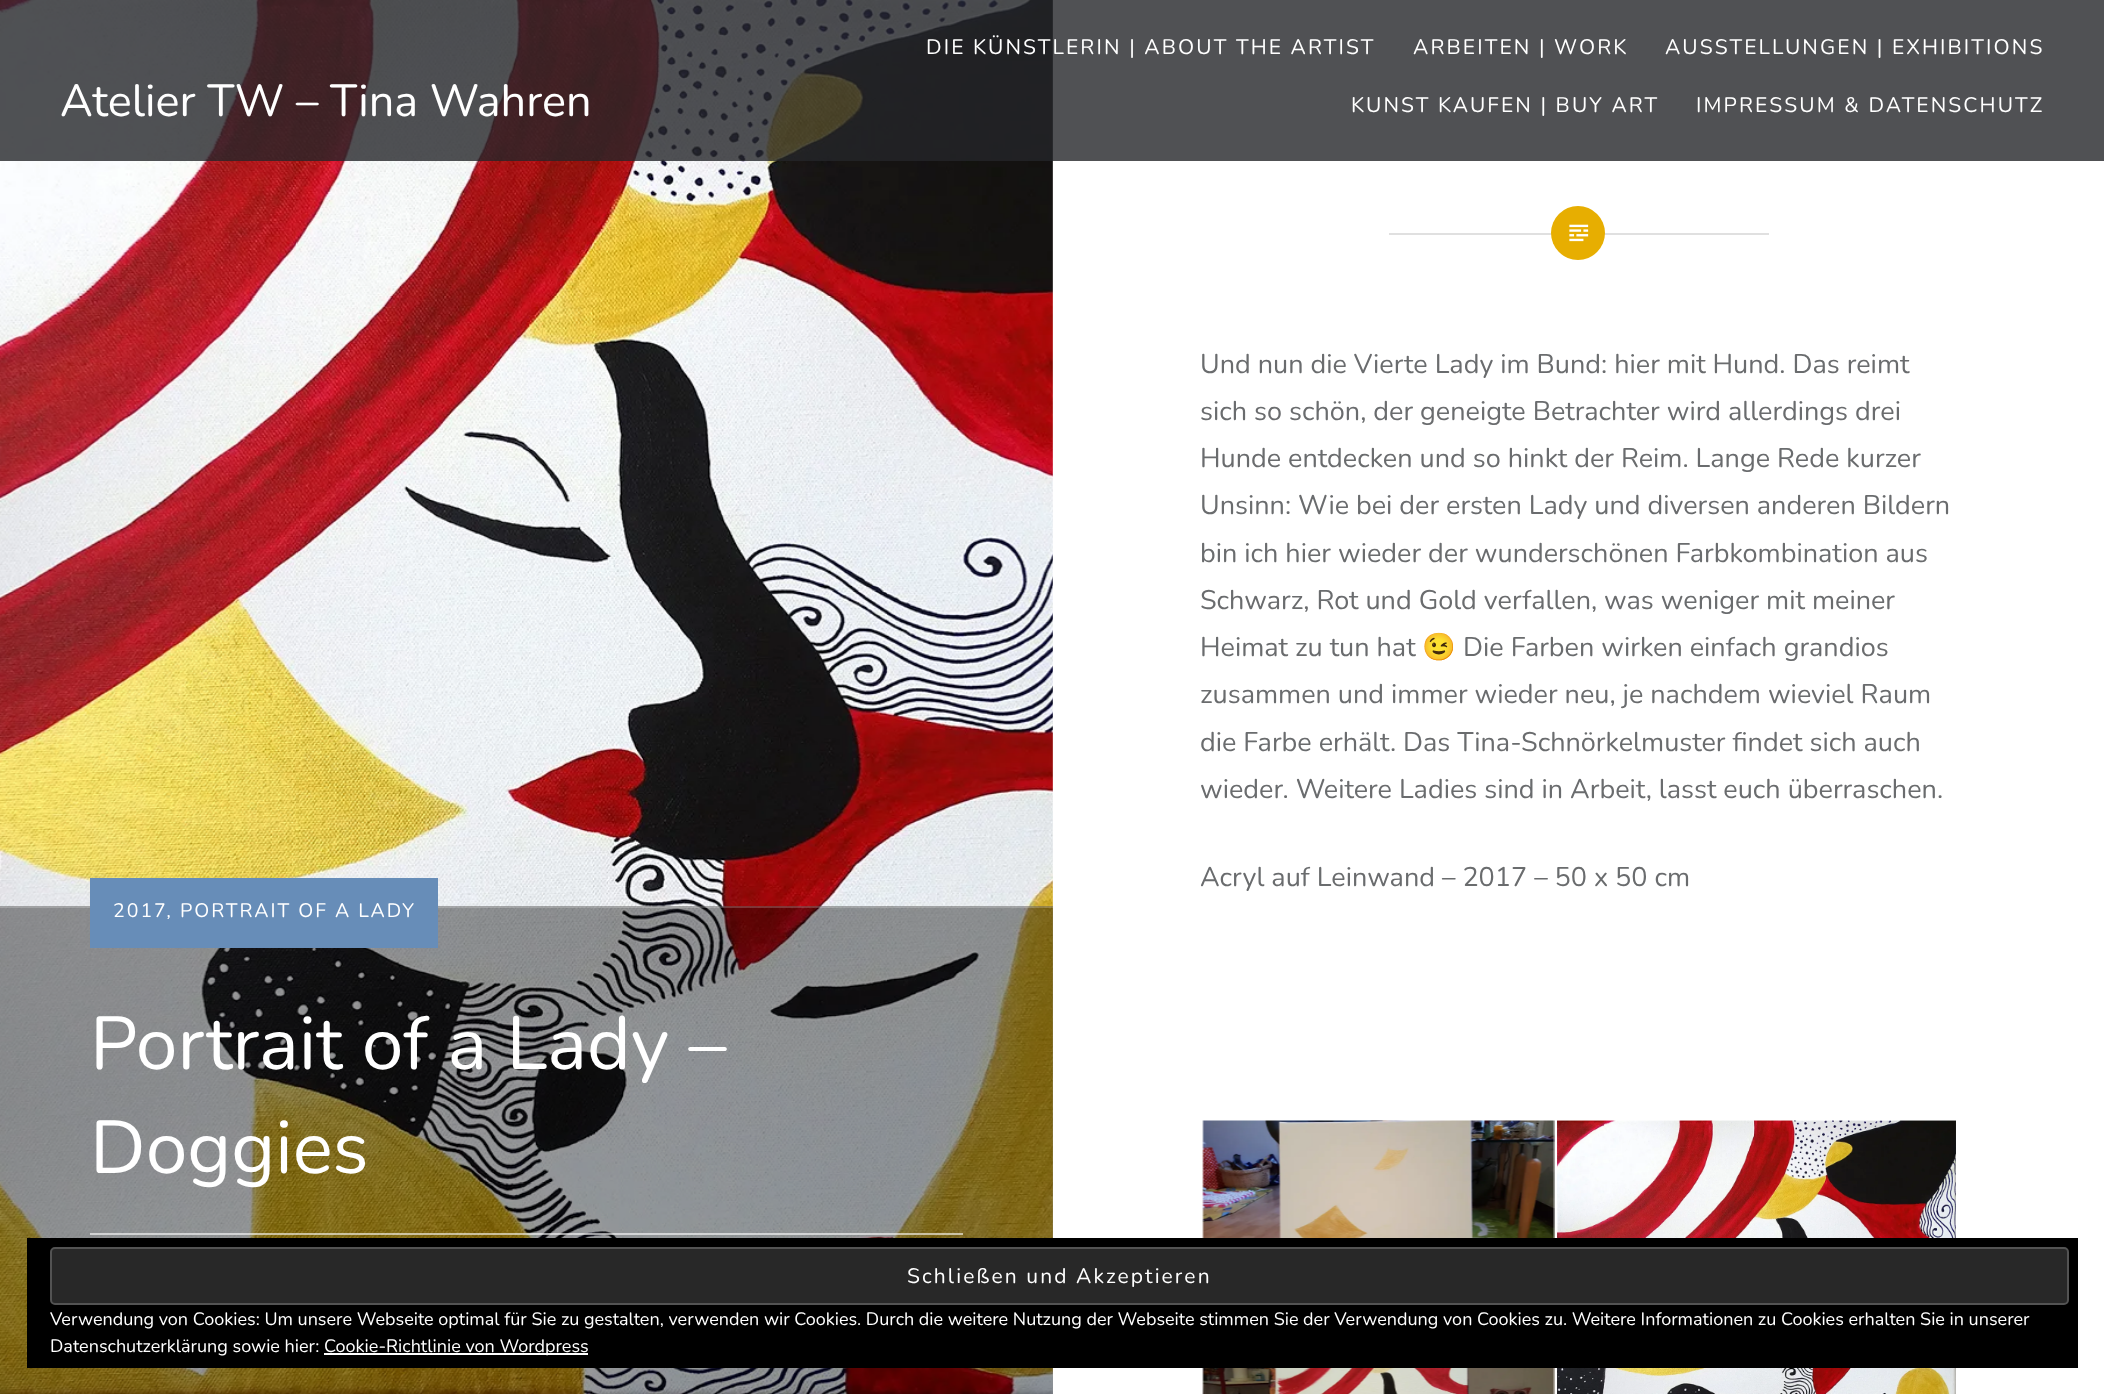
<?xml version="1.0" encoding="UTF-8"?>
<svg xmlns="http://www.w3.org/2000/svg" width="2104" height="1394">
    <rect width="100%" height="100%" fill="#FFFFFF"/>
    <image x="0" y="0" width="1053" height="1394" href="img_01.png"/>
    <rect x="0" y="0" width="2104" height="161" fill="#242629" fill-opacity="0.8"/>
    <text x="60" y="116" font-family="Nunito" font-size="45" fill="#FFFFFF">Atelier TW – Tina Wahren</text>
    <text x="926" y="54" font-family="Nunito" font-size="21" letter-spacing="2.1" fill="#FFFFFF">DIE KÜNSTLERIN | ABOUT THE ARTIST</text>
    <text x="1413" y="54" font-family="Nunito" font-size="21" letter-spacing="2.1" fill="#FFFFFF">ARBEITEN | WORK</text>
    <text x="1665" y="54" font-family="Nunito" font-size="21" letter-spacing="2.1" fill="#FFFFFF">AUSSTELLUNGEN | EXHIBITIONS</text>
    <text x="1351" y="112" font-family="Nunito" font-size="21" letter-spacing="2.1" fill="#FFFFFF">KUNST KAUFEN | BUY ART</text>
    <text x="1696" y="112" font-family="Nunito" font-size="21" letter-spacing="2.1" fill="#FFFFFF">IMPRESSUM &amp; DATENSCHUTZ</text>
    <rect x="1389" y="233" width="380" height="2" fill="#E0E0E0"/>
    <circle cx="1578" cy="233" r="27" fill="#E7AE01"/>
    <image x="1569" y="224" width="20" height="18" href="img_02.png"/>
    <text font-family="Nunito" font-size="27" fill="#6A6C6E">
        <tspan x="1200" y="373">Und nun die Vierte Lady im Bund: hier mit Hund. Das reimt</tspan>
        <tspan x="1200" y="420">sich so schön, der geneigte Betrachter wird allerdings drei</tspan>
        <tspan x="1200" y="467">Hunde entdecken und so hinkt der Reim. Lange Rede kurzer</tspan>
        <tspan x="1200" y="514">Unsinn: Wie bei der ersten Lady und diversen anderen Bildern</tspan>
        <tspan x="1200" y="562">bin ich hier wieder der wunderschönen Farbkombination aus</tspan>
        <tspan x="1200" y="609">Schwarz, Rot und Gold verfallen, was weniger mit meiner</tspan>
        <tspan x="1200" y="656">Heimat zu tun hat</tspan>
    </text>
    <text x="1422" y="656" font-family="Noto Color Emoji" font-size="27" fill="#6A6C6E">😉</text>
    <text x="1463" y="656" font-family="Nunito" font-size="27" fill="#6A6C6E">Die Farben wirken einfach grandios</text>
    <text font-family="Nunito" font-size="27" fill="#6A6C6E">
        <tspan x="1200" y="703">zusammen und immer wieder neu, je nachdem wieviel Raum</tspan>
        <tspan x="1200" y="751">die Farbe erhält. Das Tina-Schnörkelmuster findet sich auch</tspan>
        <tspan x="1200" y="798">wieder. Weitere Ladies sind in Arbeit, lasst euch überraschen.</tspan>
    </text>
    <text x="1200" y="886" font-family="Nunito" font-size="27" fill="#6A6C6E">Acryl auf Leinwand – 2017 – 50 x 50 cm</text>
    <image x="1202" y="1120" width="353" height="118" href="img_03.png"/>
    <image x="1202" y="1368" width="353" height="26" href="img_04.png"/>
    <image x="1557" y="1120" width="399" height="274" href="img_05.png"/>
    <rect x="0" y="906" width="1053" height="488" fill="#000000" fill-opacity="0.4"/>
    <rect x="0" y="906" width="1053" height="2" fill="#FFFFFF" fill-opacity="0.2"/>
    <rect x="90" y="878" width="348" height="70" fill="#678DB8"/>
    <text x="113" y="917" font-family="Nunito" font-size="19.5" letter-spacing="2" fill="#FFFFFF">2017</text>
    <text x="167" y="917" font-family="Nunito" font-size="19.5" font-style="italic" letter-spacing="2" fill="#FFFFFF">,</text>
    <text x="180" y="917" font-family="Nunito" font-size="19.5" letter-spacing="2" fill="#FFFFFF">PORTRAIT OF A LADY</text>
    <text font-family="Nunito" font-size="75" fill="#FFFFFF">
        <tspan x="90" y="1069">Portrait of a Lady –</tspan>
        <tspan x="90" y="1173">Doggies</tspan>
    </text>
    <rect x="90" y="1233" width="873" height="2" fill="#FFFFFF" fill-opacity="0.6"/>
    <rect x="27" y="1238" width="2051" height="130" fill="#000000"/>
    <rect x="51" y="1248" width="2017" height="56" rx="4" fill="#282828" stroke="#535353" stroke-width="2"/>
    <text x="907" y="1283" font-family="Nunito" font-size="21" letter-spacing="2.1" fill="#FFFFFF">Schließen und Akzeptieren</text>
    <text font-family="Nunito" font-size="18" fill="#FFFFFF">
        <tspan x="50" y="1325">Verwendung von Cookies: Um unsere Webseite optimal für Sie zu gestalten, verwenden wir Cookies. Durch die weitere Nutzung der Webseite stimmen Sie der Verwendung von Cookies zu. Weitere Informationen zu Cookies erhalten Sie in unserer</tspan>
        <tspan x="50" y="1352">Datenschutzerklärung sowie hier:</tspan>
    </text>
    <rect x="324" y="1353" width="264" height="2" fill="#FFFFFF"/>
    <text x="324" y="1352" font-family="Nunito" font-size="18" fill="#FFFFFF">Cookie-Richtlinie von Wordpress</text>
</svg>
